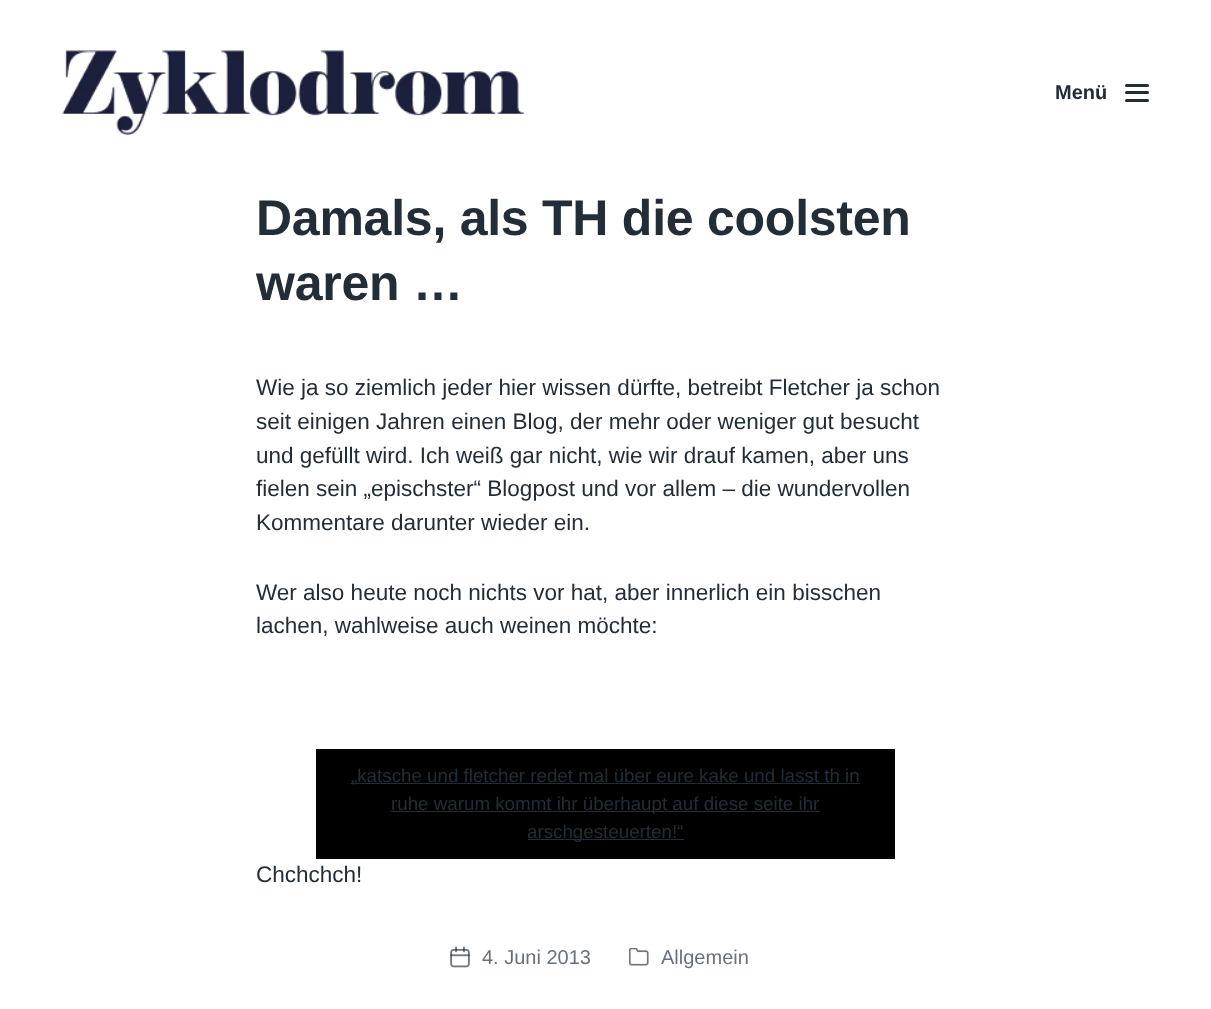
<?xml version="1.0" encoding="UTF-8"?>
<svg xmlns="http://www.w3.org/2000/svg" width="1211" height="1009">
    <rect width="100%" height="100%" fill="#FFFFFF"/>
    <image x="62" y="50" width="462" height="85" href="img_01.png"/>
    <text x="1055" y="99" font-family="Liberation Sans" font-size="20" font-weight="700" fill="#232D37">Menü</text>
    <rect x="1125" y="84" width="24" height="3" rx="1.5" fill="#232D37"/>
    <rect x="1125" y="91" width="24" height="3" rx="1.5" fill="#232D37"/>
    <rect x="1125" y="99" width="24" height="3" rx="1.5" fill="#232D37"/>
    <text font-family="Liberation Sans" font-size="50" font-weight="700" letter-spacing="-0.25" fill="#232D37">
        <tspan x="256" y="235">Damals, als TH die coolsten</tspan>
        <tspan x="256" y="300">waren …</tspan>
    </text>
    <text font-family="Liberation Sans" font-size="22.5" fill="#232D37">
        <tspan x="256" y="395">Wie ja so ziemlich jeder hier wissen dürfte, betreibt Fletcher ja schon</tspan>
        <tspan x="256" y="429">seit einigen Jahren einen Blog, der mehr oder weniger gut besucht</tspan>
        <tspan x="256" y="463">und gefüllt wird. Ich weiß gar nicht, wie wir drauf kamen, aber uns</tspan>
        <tspan x="256" y="496">fielen sein „epischster“ Blogpost und vor allem – die wundervollen</tspan>
        <tspan x="256" y="530">Kommentare darunter wieder ein.</tspan>
    </text>
    <text font-family="Liberation Sans" font-size="22.5" fill="#232D37">
        <tspan x="256" y="600">Wer also heute noch nichts vor hat, aber innerlich ein bisschen</tspan>
        <tspan x="256" y="633">lachen, wahlweise auch weinen möchte:</tspan>
    </text>
    <rect x="316" y="749" width="579" height="110" fill="#000000"/>
    <rect x="351" y="783" width="509" height="1" fill="#232D37"/>
    <text x="351" y="782" font-family="Liberation Sans" font-size="18.75" fill="#232D37">„katsche und fletcher redet mal über eure kake und lasst th in</text>
    <rect x="391" y="811" width="429" height="1" fill="#232D37"/>
    <text x="391" y="810" font-family="Liberation Sans" font-size="18.75" fill="#232D37">ruhe warum kommt ihr überhaupt auf diese seite ihr</text>
    <rect x="528" y="839" width="156" height="1" fill="#232D37"/>
    <text x="527" y="838" font-family="Liberation Sans" font-size="18.75" fill="#232D37">arschgesteuerten!“</text>
    <text x="256" y="882" font-family="Liberation Sans" font-size="22.5" fill="#232D37">Chchchch!</text>
    <image x="450" y="946" width="20" height="22" href="img_02.png"/>
    <text x="482" y="964" font-family="Liberation Sans" font-size="20" fill="#68717B">4. Juni 2013</text>
    <image x="629" y="948" width="20" height="18" href="img_03.png"/>
    <text x="661" y="964" font-family="Liberation Sans" font-size="20" fill="#68717B">Allgemein</text>
</svg>
